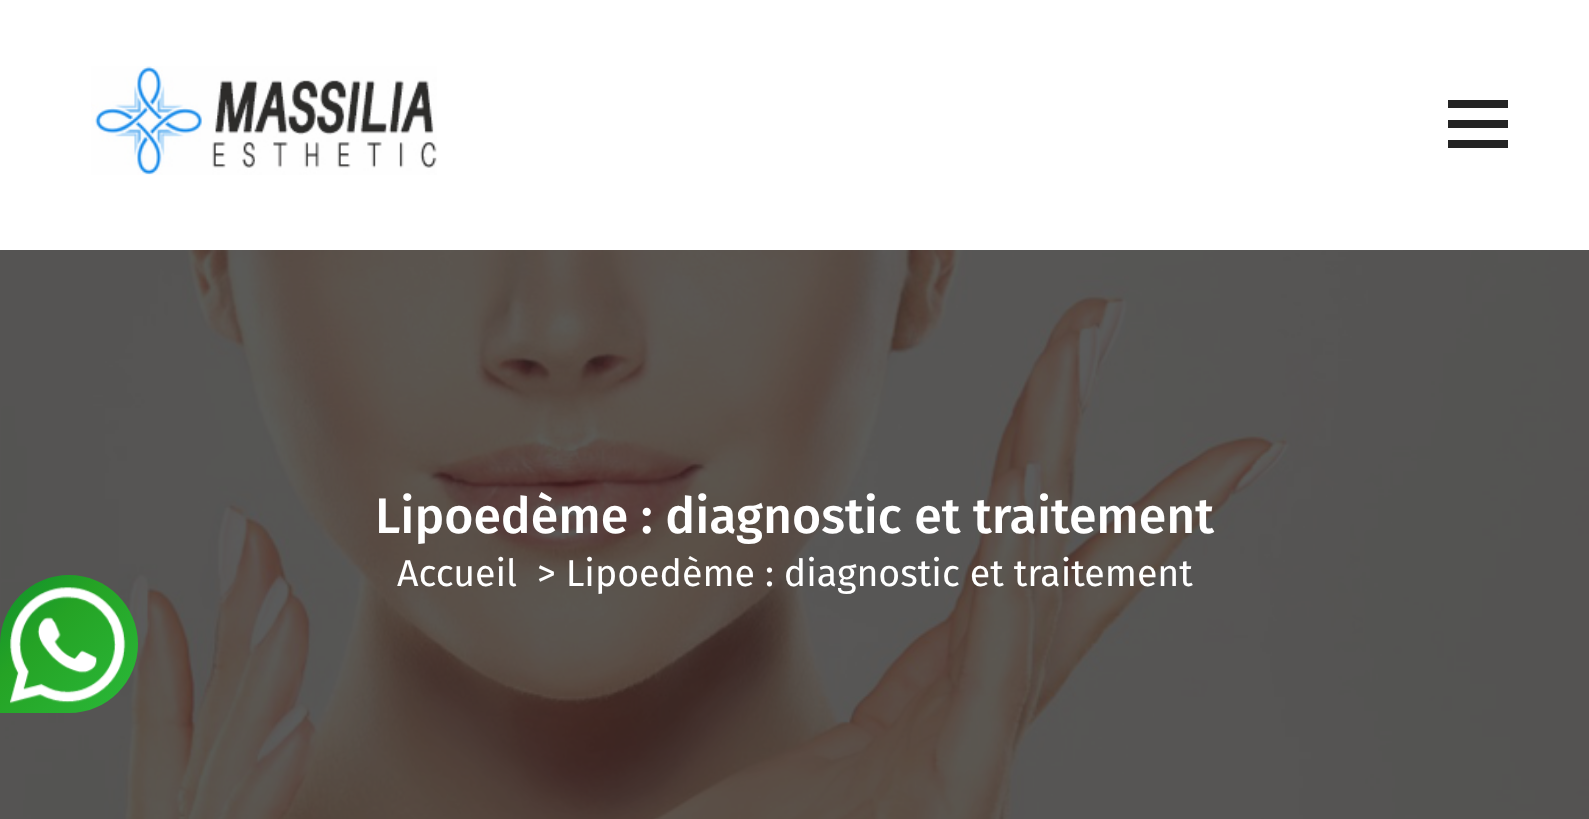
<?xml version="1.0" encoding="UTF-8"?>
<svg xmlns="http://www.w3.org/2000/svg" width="1589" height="819">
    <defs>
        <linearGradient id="g1" gradientUnits="userSpaceOnUse" x1="0" y1="575" x2="138" y2="713"><stop offset="0" stop-color="#0F912C"/><stop offset="0.37" stop-color="#25A325"/><stop offset="1" stop-color="#2AB939"/></linearGradient>
    </defs>
    <rect width="100%" height="100%" fill="#FFFFFF"/>
    <image x="91" y="66" width="346" height="109" href="img_01.png"/>
    <rect x="1448" y="100" width="60" height="8" fill="#242424"/>
    <rect x="1448" y="120" width="60" height="8" fill="#242424"/>
    <rect x="1448" y="140" width="60" height="8" fill="#242424"/>
    <image x="0" y="250" width="1589" height="569" href="img_02.png"/>
    <text x="375" y="533" font-family="Fira Sans" font-size="50" font-weight="500" fill="#FFFFFF">Lipoedème : diagnostic et traitement</text>
    <text x="397" y="586" font-family="Fira Sans" font-size="37.5" fill="#FFFFFF">Accueil</text>
    <text x="537" y="586" font-family="Fira Sans" font-size="37.5" fill="#FFFFFF">&gt; Lipoedème : diagnostic et traitement</text>
    <path d="M 69 575 C 107 575 138 606 138 644 C 138 682 107 713 69 713 H 0 V 644 C 0 606 31 575 69 575 Z" fill="url(#g1)"/>
    <image x="41" y="620" width="55" height="52" href="img_04.png"/>
    <image x="10" y="587" width="116" height="117" href="img_03.png"/>
</svg>
